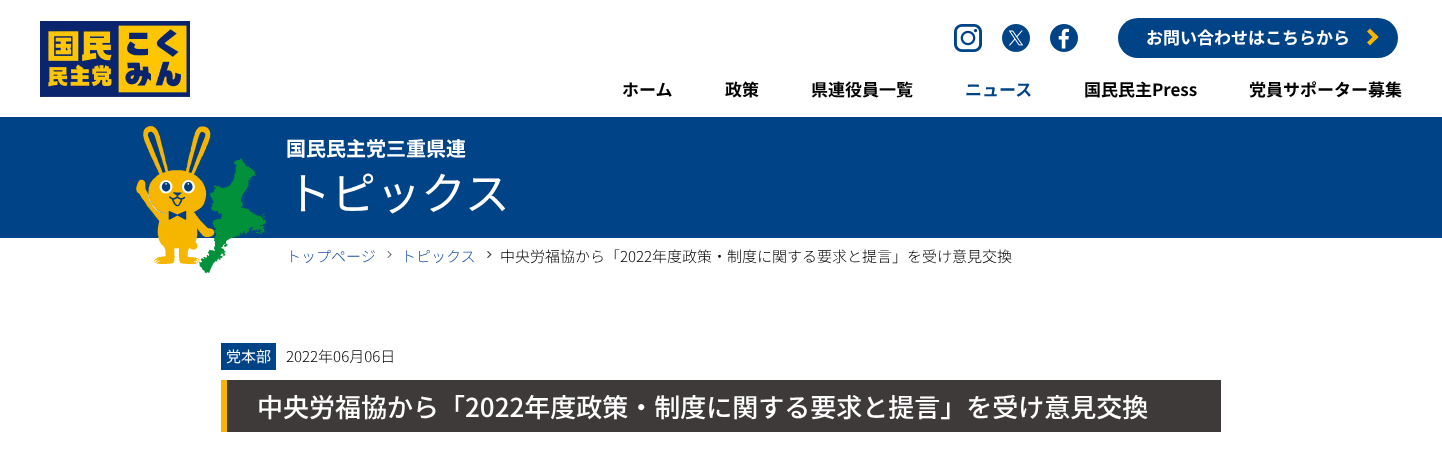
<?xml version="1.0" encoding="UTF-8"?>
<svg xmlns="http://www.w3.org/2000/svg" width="1442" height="467">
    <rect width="100%" height="100%" fill="#FFFFFF"/>
    <image x="40" y="21" width="150" height="76" href="img_01.png"/>
    <image x="954" y="24" width="28" height="28" href="img_02.png"/>
    <image x="1002" y="24" width="28" height="28" href="img_03.png"/>
    <image x="1050" y="24" width="28" height="28" href="img_04.png"/>
    <rect x="1118" y="18" width="280" height="40" rx="20" fill="#004386"/>
    <text x="1146" y="44" font-family="Noto Sans JP" font-size="17" font-weight="700" fill="#FFFFFF">お問い合わせはこちらから</text>
    <path d="M 1370 28.5 L 1378.5 37 L 1375.5 40 L 1367 31.5 Z" fill="#F6B600"/>
    <path d="M 1375.5 34 L 1378.5 37 L 1370 45.5 L 1367 42.5 Z" fill="#F6B600"/>
    <text x="622" y="96" font-family="Noto Sans JP" font-size="17" font-weight="700" fill="#000000">ホーム</text>
    <text x="725" y="96" font-family="Noto Sans JP" font-size="17" font-weight="700" fill="#000000">政策</text>
    <text x="811" y="96" font-family="Noto Sans JP" font-size="17" font-weight="700" fill="#000000">県連役員一覧</text>
    <text x="965" y="96" font-family="Noto Sans JP" font-size="17" font-weight="700" fill="#004386">ニュース</text>
    <text x="1084" y="96" font-family="Noto Sans JP" font-size="17" font-weight="700" fill="#000000">国民民主Press</text>
    <text x="1249" y="96" font-family="Noto Sans JP" font-size="17" font-weight="700" fill="#000000">党員サポーター募集</text>
    <rect x="0" y="117" width="1442" height="121" fill="#004386"/>
    <text x="286" y="156" font-family="Noto Sans JP" font-size="20" font-weight="700" fill="#FFFFFF">国民民主党三重県連</text>
    <image x="136" y="126" width="130" height="148" href="img_05.png"/>
    <text x="286" y="210" font-family="Noto Sans JP" font-size="45" fill="#FFFFFF">トピックス</text>
    <text x="286" y="262" font-family="Noto Sans JP" font-size="15" font-weight="300" fill="#1D50A2">トップページ</text>
    <path d="M 388 251 L 391.5 254.5 L 391 255 L 387.5 251.5 Z" fill="#333333"/>
    <path d="M 391 254 L 391.5 254.5 L 388 258 L 387.5 257.5 Z" fill="#333333"/>
    <text x="401" y="262" font-family="Noto Sans JP" font-size="15" font-weight="300" fill="#1D50A2">トピックス</text>
    <path d="M 488 251 L 491.5 254.5 L 490.5 255 L 487 251.5 Z" fill="#333333"/>
    <path d="M 490.5 254 L 491.5 254.5 L 488 258 L 487 257.5 Z" fill="#333333"/>
    <text x="500" y="262" font-family="Noto Sans JP" font-size="15" font-weight="300" fill="#000000">中央労福協から「2022年度政策・制度に関する要求と提言」を受け意見交換</text>
    <rect x="221" y="343" width="55" height="27" fill="#004386"/>
    <text x="226" y="362" font-family="Noto Sans JP" font-size="15" fill="#FFFFFF">党本部</text>
    <text x="286" y="362" font-family="Noto Sans JP" font-size="15" font-weight="300" fill="#000000">2022年06月06日</text>
    <rect x="227" y="380" width="994" height="52" fill="#3E3A39"/>
    <rect x="221" y="380" width="6" height="52" fill="#F6B600"/>
    <text x="257" y="417" font-family="Noto Sans JP" font-size="26" font-weight="500" fill="#FFFFFF">中央労福協から「2022年度政策・制度に関する要求と提言」を受け意見交換</text>
</svg>
